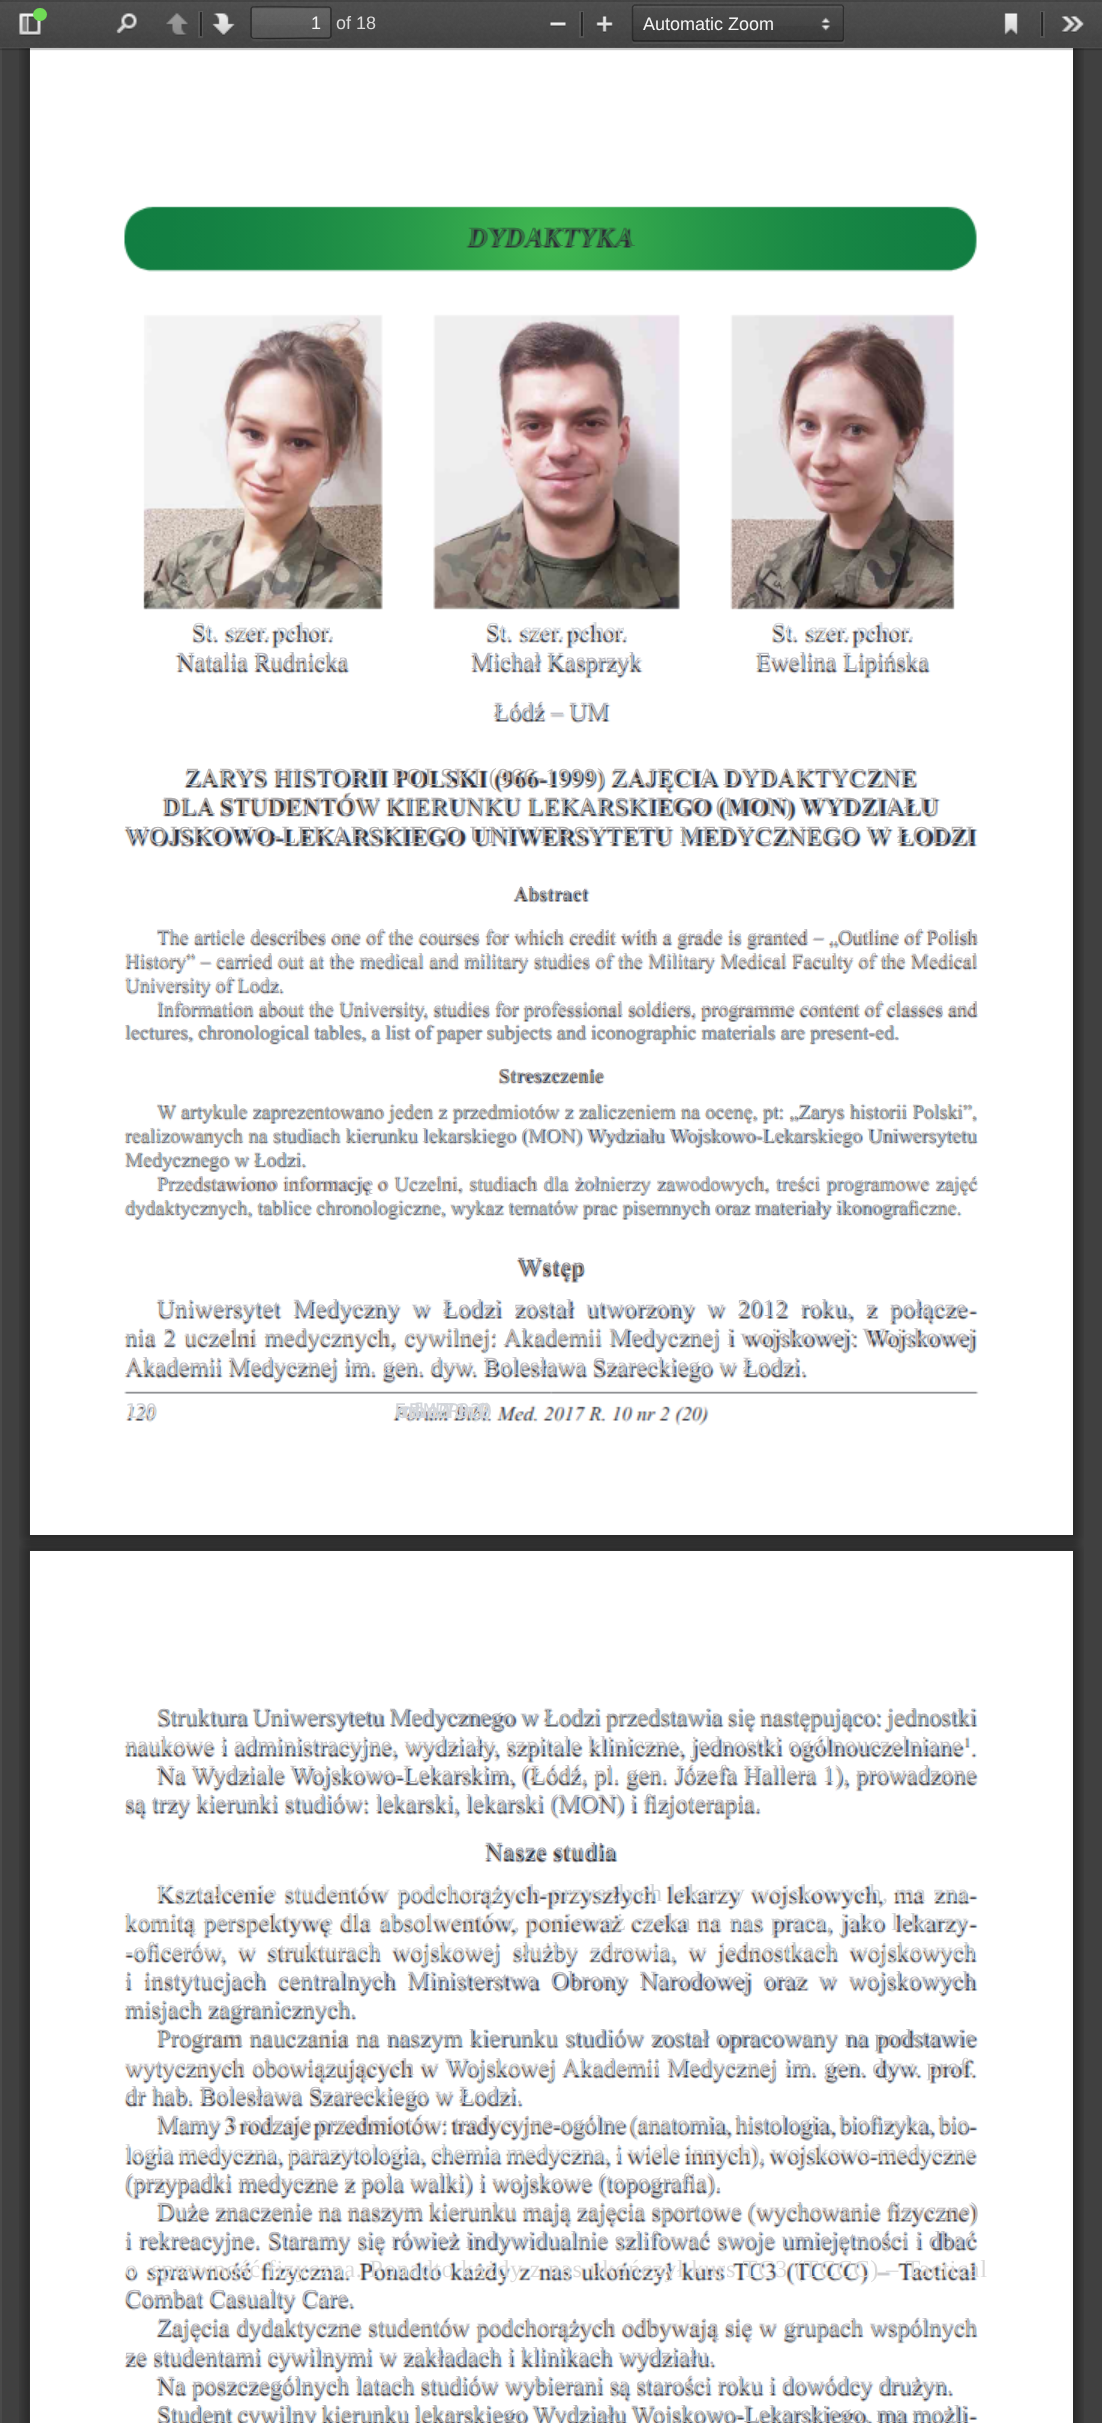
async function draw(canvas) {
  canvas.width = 1102;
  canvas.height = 2423;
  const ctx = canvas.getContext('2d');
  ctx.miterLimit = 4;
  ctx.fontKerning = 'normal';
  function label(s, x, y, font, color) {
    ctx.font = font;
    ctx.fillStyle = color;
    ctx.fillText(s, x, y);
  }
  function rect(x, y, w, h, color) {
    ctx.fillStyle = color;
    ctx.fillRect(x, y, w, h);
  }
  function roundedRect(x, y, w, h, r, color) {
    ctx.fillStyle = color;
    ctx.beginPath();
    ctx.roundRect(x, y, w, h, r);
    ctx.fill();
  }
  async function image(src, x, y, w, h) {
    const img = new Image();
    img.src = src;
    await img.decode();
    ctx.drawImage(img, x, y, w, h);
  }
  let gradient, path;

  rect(0, 0, 1102, 2423, '#404040');
  rect(0, 48, 2, 2375, '#4a4a4a');
  await image('assets/img11.png', 19, 48, 1065, 1498);
  await image('assets/img12.png', 30, 48, 1043, 1487);
  ctx.save();
  ctx.beginPath();
  ctx.rect(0, 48, 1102, 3);
  ctx.clip();
  ctx.fillStyle = '#0000001a';
  ctx.filter = 'blur(1px)';
  ctx.beginPath();
  ctx.rect(0, 2, 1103, 48);
  ctx.fill();
  ctx.filter = 'none';
  ctx.restore();
  ctx.fillStyle = '#00000026';
  path = new Path2D('M0 48V50H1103V2H1102V48Z');
  ctx.fill(path);
  await image('assets/img1.png', 0, 0, 1102, 48);
  rect(0, 47, 1102, 2, '#ffffff0d');
  rect(0, 0, 1102, 2, '#00000026');
  await image('assets/img2.png', 19, 13, 22, 23);
  roundedRect(33, 8, 14, 13, 6.5, '#70db55');
  await image('assets/img3.png', 116, 13, 21, 22);
  await image('assets/img4.png', 166, 13, 22, 23);
  ctx.strokeStyle = '#ffffff14';
  ctx.lineWidth = 2;
  ctx.strokeRect(199, 12, 3, 25);
  rect(200, 12, 2, 24, '#00000080');
  await image('assets/img5.png', 212, 13, 23, 23);
  ctx.fillStyle = '#ffffff0d';
  path = new Path2D('M251 38C251 44 266 41 266 41H316C333 41 332 44 332 29C332 26 333 11 332 9V36C332 38 330 39 328 39H254C252 39 252 38 251 38Z');
  ctx.fill(path);
  rect(252, 8, 78, 30, '#ffffff17');
  gradient = ctx.createLinearGradient(291, 7.5, 291, 38);
  gradient.addColorStop(0, '#ffffff0d');
  gradient.addColorStop(1, '#ffffff00');
  ctx.fillStyle = gradient;
  ctx.fillRect(252, 8, 78, 17);
  ctx.fillStyle = '#0000000d';
  path = new Path2D('M254 9H328L330 10C330 9 330 8 328 8H253C252 8 252 9 252 10Z');
  ctx.fill(path);
  path = new Path2D('M252 7.5L252.5 7C254 6 309.5 7 316 7H328.5L330 7.5');
  ctx.strokeStyle = '#00000052';
  ctx.lineWidth = 1.5;
  ctx.stroke(path);
  path = new Path2D('M330 7.5C330.5 8 331 8.5 331 9V36C331 36.5 330.5 37 330 37.5');
  ctx.strokeStyle = '#00000061';
  ctx.stroke(path);
  path = new Path2D('M330 37.5L328.5 38H316C309.5 38 254 39 252.5 38L252 37.5');
  ctx.strokeStyle = '#0000006b';
  ctx.stroke(path);
  path = new Path2D('M252 37.5C251.5 37 251 36.5 251 36V9C251 8.5 251.5 8 252 7.5');
  ctx.strokeStyle = '#00000061';
  ctx.stroke(path);
  label('1', 311, 29, '18px Liberation Sans', '#f2f2f2');
  label('of 18', 336, 29, '18px Liberation Sans', '#dad9d9');
  await image('assets/img6.png', 550, 22, 16, 5);
  ctx.strokeStyle = '#ffffff14';
  ctx.lineWidth = 2;
  ctx.strokeRect(580, 12, 3, 25);
  rect(581, 12, 2, 24, '#00000080');
  await image('assets/img7.png', 596, 16, 17, 17);
  ctx.fillStyle = '#ffffff0d';
  path = new Path2D('M632 41C632 43 633 44 635 44H842C844 44 845 43 845 41V9L844 7V39C844 41 843 42 842 42H634C633 42 633 41 632 41Z');
  ctx.fill(path);
  rect(633, 6, 210, 35, '#0000001f');
  gradient = ctx.createLinearGradient(738, 6, 738, 41);
  gradient.addColorStop(0, '#ffffff0d');
  gradient.addColorStop(1, '#ffffff00');
  ctx.fillStyle = gradient;
  ctx.fillRect(633, 6, 210, 20);
  ctx.fillStyle = '#ffffff0d';
  path = new Path2D('M634 8H842L843 9C843 8 843 6 842 6H634C633 6 633 8 633 9Z');
  ctx.fill(path);
  path = new Path2D('M633 6L634.5 5H841.5L843 6');
  ctx.strokeStyle = '#00000052';
  ctx.lineWidth = 1.5;
  ctx.stroke(path);
  path = new Path2D('M843 6L843.5 7.5V39L843 40.5');
  ctx.strokeStyle = '#00000061';
  ctx.stroke(path);
  path = new Path2D('M843 40.5L841.5 41H634.5L633 40.5');
  ctx.strokeStyle = '#0000006b';
  ctx.stroke(path);
  path = new Path2D('M633 40.5L632.5 39V7.5L633 6');
  ctx.strokeStyle = '#00000061';
  ctx.stroke(path);
  label('Automatic Zoom', 643, 30, '18px Liberation Sans', '#f2f2f2');
  await image('assets/img8.png', 821, 17, 9, 14);
  await image('assets/img9.png', 1004, 13, 14, 23);
  ctx.strokeStyle = '#ffffff14';
  ctx.lineWidth = 2;
  ctx.strokeRect(1041, 12, 3, 25);
  rect(1041, 12, 2, 24, '#00000080');
  await image('assets/img10.png', 1061, 16, 24, 17);
  ctx.letterSpacing = '-1.25px';
  label('DYDAKTYKA', 468, 246, '27.75px Liberation Serif', '#347543');
  ctx.letterSpacing = '-0.5px';
  label('St.  szer. pchor.', 192, 639, '24.65px Liberation Serif', '#cfd2d5');
  label('St.  szer. pchor.', 486, 639, '24.65px Liberation Serif', '#d3d6db');
  label('St.  szer. pchor.', 772, 639, '24.65px Liberation Serif', '#d3d6db');
  ctx.letterSpacing = '0px';
  label('Natalia Rudnicka', 177, 669, '24.65px Liberation Serif', '#b9b9c1');
  label('Michał Kasprzyk', 471, 669, '24.65px Liberation Serif', '#b9b9c1');
  label('Ewelina Lipińska', 756, 669, '24.65px Liberation Serif', '#b9b9c1');
  label('Łódź – UM', 494, 719, '24.65px Liberation Serif', '#b9b9c1');
  ctx.letterSpacing = '0.65px';
  label('ZARYS HISTORII POLSKI (966-1999) ZAJĘCIA DYDAKTYCZNE', 185, 785, '24.65px Liberation Serif', '#b7b4b3');
  ctx.letterSpacing = '0.7px';
  label('DLA STUDENTÓW KIERUNKU LEKARSKIEGO (MON) WYDZIAŁU', 163, 814, '24.65px Liberation Serif', '#afadae');
  ctx.letterSpacing = '0.8px';
  label('WOJSKOWO-LEKARSKIEGO UNIWERSYTETU MEDYCZNEGO W ŁODZI', 125, 843, '24.65px Liberation Serif', '#afadae');
  ctx.letterSpacing = '0.5px';
  label('Ab', 514, 900, '20.2px Liberation Serif', '#9a989f');
  ctx.letterSpacing = '1px';
  label('stract', 539, 900, '20.2px Liberation Serif', '#9a989f');
  ctx.letterSpacing = '0.13px';
  label('The article describes one of the courses for which credit with a grade is granted – „Outline of Polish', 157, 943, '20.2px Liberation Serif', '#b9b9c1');
  ctx.letterSpacing = '0.11px';
  label('History” – carried out at the medical and military studies of the Military Medical Faculty of the Medical', 125, 967, '20.2px Liberation Serif', '#bfbbbd');
  ctx.letterSpacing = '0px';
  label('University of Lodz.', 125, 991, '20.2px Liberation Serif', '#c0bec3');
  ctx.letterSpacing = '0.05px';
  label('Information about the University, studies for professional soldiers, programme content of classes and', 157, 1015, '20.2px Liberation Serif', '#b9b9c1');
  ctx.letterSpacing = '0px';
  label('lectures, chronological tables, a list of paper subjects and iconographic materials are present-ed.', 125, 1039, '20.2px Liberation Serif', '#a6a3a9');
  ctx.letterSpacing = '0.4px';
  label('Streszczenie', 499, 1082, '20.2px Liberation Serif', '#a29c9b');
  ctx.letterSpacing = '0.05px';
  label('W artykule zaprezentowano jeden z przedmiotów z zaliczeniem na ocenę, pt: „Zarys historii Polski”,', 157, 1118, '20.2px Liberation Serif', '#afadae');
  ctx.wordSpacing = '-0.1px';
  label('realizowanych na studiach kierunku lekarskiego (MON) Wydziału Wojskowo-Lekarskiego Uniwersytetu', 125, 1142, '20.2px Liberation Serif', '#b7b4b3');
  ctx.letterSpacing = '0px';
  ctx.wordSpacing = '0px';
  label('Medycznego w Łodzi.', 125, 1166, '20.2px Liberation Serif', '#afadae');
  ctx.letterSpacing = '0.22px';
  label('Przedstawiono informację o Uczelni, studiach dla żołnierzy zawodowych, treści programowe zajęć', 157, 1190, '20.2px Liberation Serif', '#b9b9c1');
  ctx.letterSpacing = '0px';
  ctx.wordSpacing = '-0.1px';
  label('dydaktycznych, tablice chronologiczne, wykaz tematów prac pisemnych oraz materiały ikonograficzne.', 125, 1214, '20.2px Liberation Serif', '#b7b4b3');
  ctx.letterSpacing = '1px';
  ctx.wordSpacing = '0px';
  label('Wstęp', 518, 1274, '24.65px Liberation Serif', '#989498');
  ctx.letterSpacing = '0.25px';
  label('Uniwersytet  Medyczny  w  Łodzi  został  utworzony  w  2012  roku,  z  połącze', 157, 1316, '24.65px Liberation Serif', '#b9b9c1');
  ctx.letterSpacing = '0.5px';
  label('nia 2', 125, 1345, '24.65px Liberation Serif', '#b9b9c1');
  ctx.letterSpacing = '0.25px';
  label('uczelni medycznych, cywilnej: Akademii Medycznej i wojskowej: Wojskowej', 185, 1345, '24.65px Liberation Serif', '#bfbbbd');
  ctx.letterSpacing = '0px';
  label('Akademii Medycznej im. gen. dyw. Bolesława Szareckiego w Łodzi.', 125, 1374, '24.65px Liberation Serif', '#c0bec3');
  ctx.letterSpacing = '-2px';
  label('120', 125, 1418, '20.2px DejaVu Sans Mono', '#d3d6db');
  ctx.letterSpacing = '-9.7px';
  label('Forum Bibl. Med. 2017 R. 10 nr 2 (20)', 394, 1418, '20.2px DejaVu Sans Mono', '#d3d6db');
  await image('assets/img13.png', 19, 1540, 1065, 883);
  await image('assets/img14.png', 30, 1551, 1043, 872);
  ctx.letterSpacing = '-0.2px';
  label('Struktura Uniwersytetu Medycznego w Łodzi przedstawia się następująco: jednostki', 157, 1725, '24.65px Liberation Serif', '#b0b1b6');
  ctx.letterSpacing = '0.05px';
  label('naukowe i administracyjne, wydziały, szpitale kliniczne, jednostki ogólnouczelniane', 125, 1753, '24.65px Liberation Serif', '#c6c4c7');
  ctx.letterSpacing = '0px';
  label('Na Wydziale Wojskowo-Lekarskim, (', 157, 1782, '24.65px Liberation Serif', '#bfbbbd');
  ctx.letterSpacing = '0.05px';
  label('Łódź, pl. gen. Józefa Hallera 1), prowadzone', 531, 1782, '24.65px Liberation Serif', '#bfbbbd');
  ctx.letterSpacing = '0px';
  label('są trzy kierunki studiów: lekarski, lekarski (MON) i fizjoterapia.', 125, 1811, '24.65px Liberation Serif', '#b9b9c1');
  ctx.letterSpacing = '0.5px';
  label('Nasze studia', 485, 1859, '24.65px Liberation Serif', '#a3a8b2');
  ctx.letterSpacing = '0.53px';
  label('Kształcenie studentów podchorążych-przyszłych lekarzy wojskowych, ma zna', 157, 1901, '24.65px Liberation Serif', '#cfd2d5');
  ctx.letterSpacing = '0.55px';
  label('komitą perspektywę dla absolwentów, ponieważ czeka na nas praca, jako lekarzy', 125, 1930, '24.65px Liberation Serif', '#c8cbce');
  ctx.letterSpacing = '0.08px';
  label('-oficerów,  w  strukturach  wojskowej  służby  zdrowia,  w  jednostkach  wojskowych', 125, 1959, '24.65px Liberation Serif', '#c8cbce');
  ctx.letterSpacing = '0.15px';
  label('i  instytucjach  centralnych  Ministerstwa  Obrony  Narodowej  oraz  w  wojskowych', 125, 1988, '24.65px Liberation Serif', '#b9b9c1');
  ctx.letterSpacing = '0px';
  label('misjach zagranicznych.', 125, 2017, '24.65px Liberation Serif', '#b6b6bb');
  ctx.letterSpacing = '0.2px';
  label('Program nauczania na naszym kierunku studiów został opracowany na podstawie', 157, 2046, '24.65px Liberation Serif', '#b0b1b6');
  ctx.letterSpacing = '0.18px';
  label('wytycznych obowiązujących w Wojskowej Akademii Medycznej im. gen. dyw. prof.', 125, 2075, '24.65px Liberation Serif', '#c6c4c7');
  ctx.letterSpacing = '0px';
  label('dr hab. Bolesława Szareckiego w Łodzi.', 125, 2103, '24.65px Liberation Serif', '#c0bec3');
  ctx.letterSpacing = '-0.5px';
  label('Mamy 3 rodzaje przedmiotów: tradycyjne-ogólne (anatomia, histologia, biofizyka, bio', 157, 2132, '24.65px Liberation Serif', '#c0bec3');
  ctx.letterSpacing = '-0.27px';
  label('logia medyczna, parazytologia, chemia medyczna, i wiele innych), wojskowo-medyczne', 125, 2161, '24.65px Liberation Serif', '#cfd2d5');
  ctx.letterSpacing = '0px';
  label('(przypadki medyczne z pola walki) i wojskowe (topografia).', 125, 2190, '24.65px Liberation Serif', '#bfbbbd');
  label('Duże znaczenie na naszym kierunku mają zajęcia sportowe (wychowanie fizyczne)', 157, 2219, '24.65px Liberation Serif', '#bfbbbd');
  ctx.letterSpacing = '0.15px';
  label('i rekreacyjne. Staramy się rówież indywidualnie szlifować swoje umiejętności i dbać', 125, 2248, '24.65px Liberation Serif', '#b9b9c1');
  ctx.letterSpacing = '0.6px';
  label('o  sprawność fizyczna. Ponadto każdy z nas ukończył kurs TC3 (TCCC) – Tactical', 125, 2277, '24.65px Liberation Serif', '#dad9d9');
  ctx.letterSpacing = '0px';
  label('Combat Casualty Care.', 125, 2306, '24.65px Liberation Serif', '#b9b9c1');
  ctx.letterSpacing = '0.1px';
  label('Zajęcia dydaktyczne studentów podchorążych odbywają się w grupach wspólnych', 157, 2335, '24.65px Liberation Serif', '#b9b9c1');
  ctx.letterSpacing = '0px';
  label('ze studentami cywilnymi w zakładach i klinikach wydziału.', 125, 2364, '24.65px Liberation Serif', '#b9b9c1');
  label('Na poszczególnych latach studiów wybierani są starości roku i dowódcy drużyn.', 157, 2393, '24.65px Liberation Serif', '#b9b9c1');
  ctx.letterSpacing = '-0.12px';
  label('Student cywilny kierunku lekarskiego Wydziału Wojskowo-Lekarskiego, ma możli', 157, 2422, '24.65px Liberation Serif', '#b0b1b6');
}

draw(document.querySelector('canvas'));
